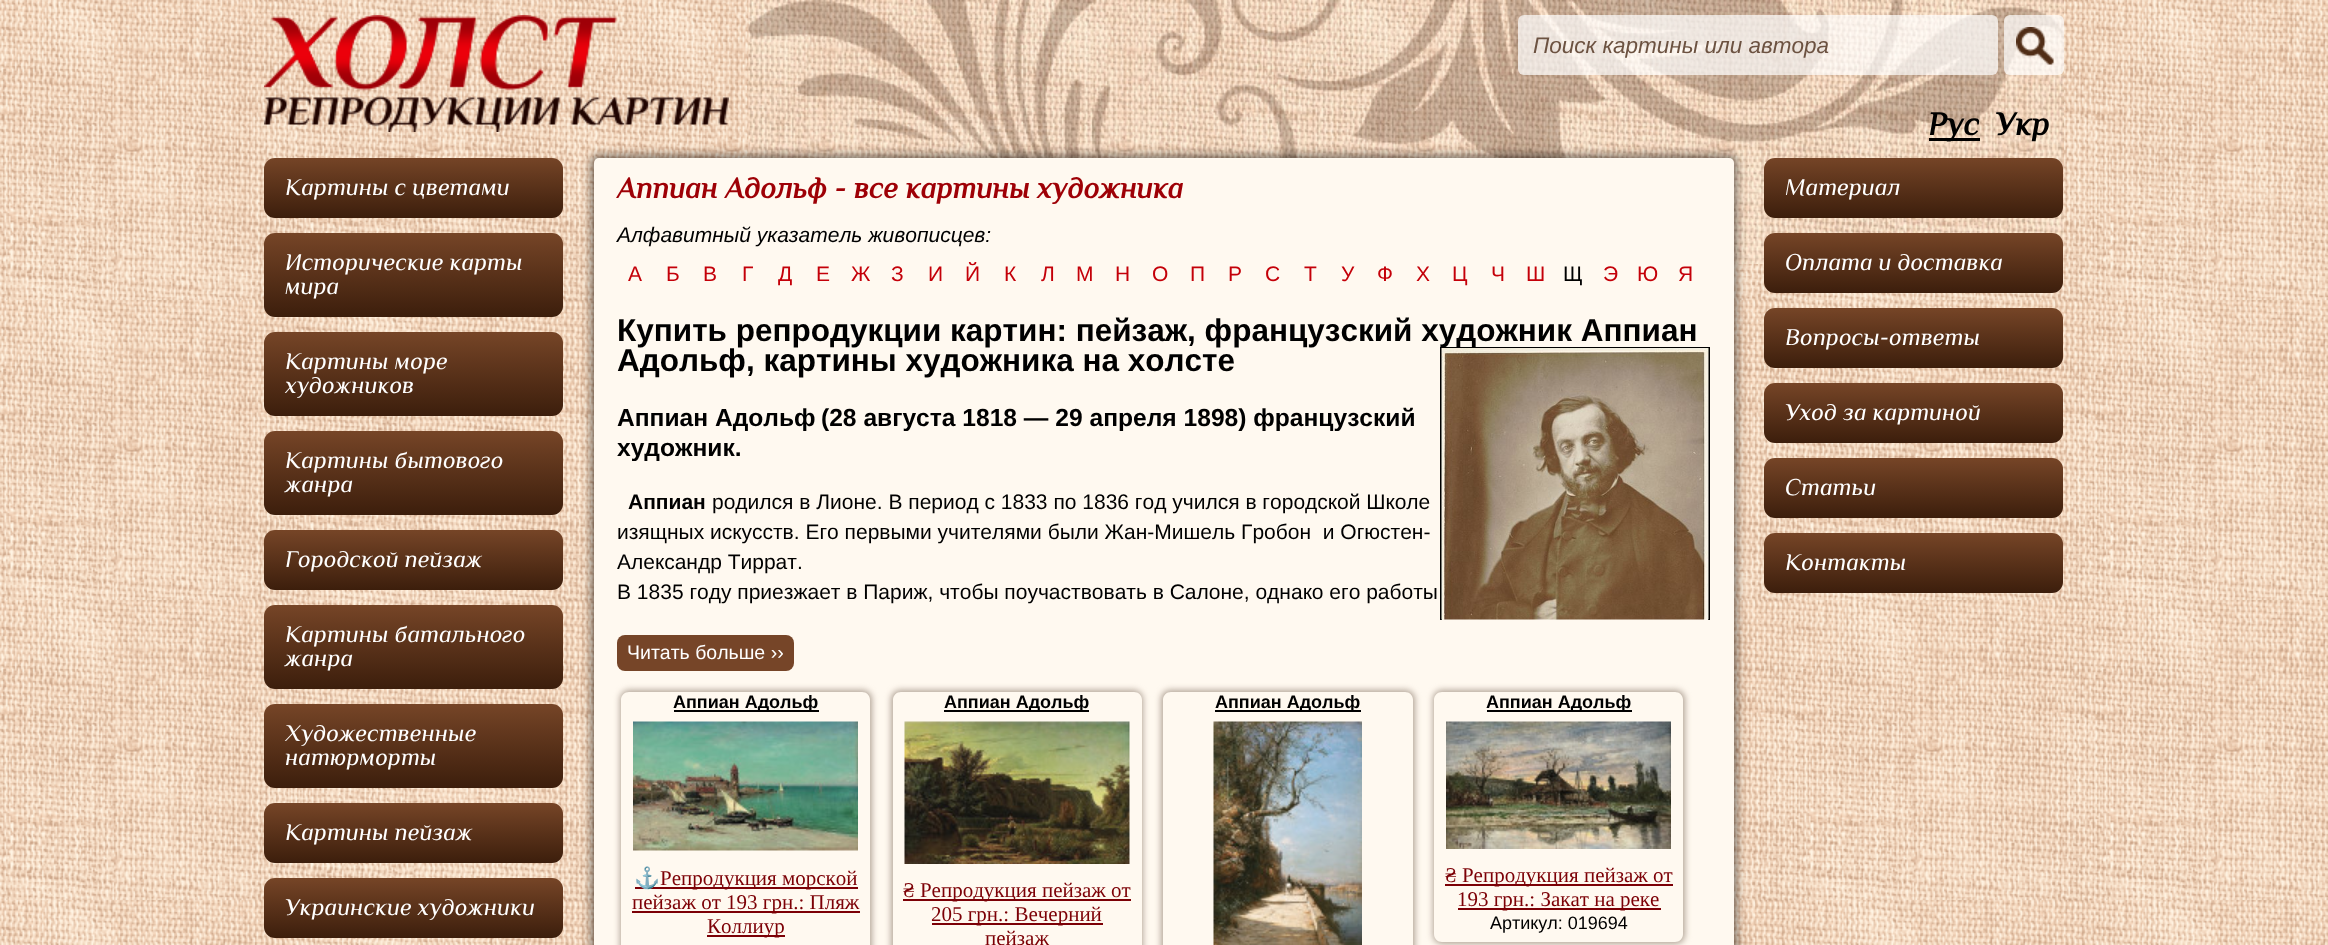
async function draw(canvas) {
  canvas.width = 2328;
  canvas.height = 945;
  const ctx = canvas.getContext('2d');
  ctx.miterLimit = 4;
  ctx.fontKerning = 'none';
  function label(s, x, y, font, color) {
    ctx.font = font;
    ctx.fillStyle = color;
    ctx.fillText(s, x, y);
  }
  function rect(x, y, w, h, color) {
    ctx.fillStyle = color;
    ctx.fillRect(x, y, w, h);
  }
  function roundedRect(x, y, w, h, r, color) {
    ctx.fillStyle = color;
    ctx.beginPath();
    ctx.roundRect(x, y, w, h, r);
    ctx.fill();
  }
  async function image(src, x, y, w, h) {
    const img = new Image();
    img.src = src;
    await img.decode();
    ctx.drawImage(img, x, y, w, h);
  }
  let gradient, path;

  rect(0, 0, 2328, 945, '#fff');
  await image('assets/img1.png', 0, 0, 2328, 945);
  await image('assets/img2.png', 748, 0, 1316, 264);
  await image('assets/img3.png', 264, 15, 465, 117);
  roundedRect(1518, 15, 480, 60, 6, '#ffffffb3');
  label('Поиск картины или автора', 1533, 53, 'italic 22.5px Liberation Sans', '#6c5241');
  roundedRect(2004, 15, 60, 60, 6, '#ffffffb3');
  await image('assets/img4.png', 2016, 27, 38, 38);
  rect(1929, 138, 51, 3, '#000');
  label('Рус', 1928, 135, 'italic bold 33px Philosopher', '#000');
  label('Укр', 1995, 135, 'italic bold 33px Philosopher', '#000');
  gradient = ctx.createLinearGradient(413, 157, 413, 218);
  gradient.addColorStop(0, '#764527');
  gradient.addColorStop(1, '#3c1e0c');
  ctx.fillStyle = gradient;
  ctx.beginPath();
  ctx.roundRect(264, 158, 299, 60, 11);
  ctx.fill();
  label('Картины с цветами', 285, 195, 'italic 24px Philosopher', '#fff');
  gradient = ctx.createLinearGradient(413, 233, 413, 317);
  gradient.addColorStop(0, '#764527');
  gradient.addColorStop(1, '#3c1e0c');
  ctx.fillStyle = gradient;
  ctx.beginPath();
  ctx.roundRect(264, 233, 299, 84, 11);
  ctx.fill();
  label('Исторические карты', 285, 270, 'italic 24px Philosopher', '#fff');
  label('мира', 285, 294, 'italic 24px Philosopher', '#fff');
  gradient = ctx.createLinearGradient(413, 332, 413, 416);
  gradient.addColorStop(0, '#764527');
  gradient.addColorStop(1, '#3c1e0c');
  ctx.fillStyle = gradient;
  ctx.beginPath();
  ctx.roundRect(264, 332, 299, 84, 11);
  ctx.fill();
  label('Картины море', 285, 369, 'italic 24px Philosopher', '#fff');
  label('художников', 285, 393, 'italic 24px Philosopher', '#fff');
  gradient = ctx.createLinearGradient(413, 431, 413, 515);
  gradient.addColorStop(0, '#764527');
  gradient.addColorStop(1, '#3c1e0c');
  ctx.fillStyle = gradient;
  ctx.beginPath();
  ctx.roundRect(264, 431, 299, 84, 11);
  ctx.fill();
  label('Картины бытового', 285, 468, 'italic 24px Philosopher', '#fff');
  label('жанра', 285, 492, 'italic 24px Philosopher', '#fff');
  gradient = ctx.createLinearGradient(413, 530, 413, 590);
  gradient.addColorStop(0, '#764527');
  gradient.addColorStop(1, '#3c1e0c');
  ctx.fillStyle = gradient;
  ctx.beginPath();
  ctx.roundRect(264, 530, 299, 60, 11);
  ctx.fill();
  label('Городской пейзаж', 285, 567, 'italic 24px Philosopher', '#fff');
  gradient = ctx.createLinearGradient(413, 605, 413, 689);
  gradient.addColorStop(0, '#764527');
  gradient.addColorStop(1, '#3c1e0c');
  ctx.fillStyle = gradient;
  ctx.beginPath();
  ctx.roundRect(264, 605, 299, 84, 11);
  ctx.fill();
  label('Картины батального', 285, 642, 'italic 24px Philosopher', '#fff');
  label('жанра', 285, 666, 'italic 24px Philosopher', '#fff');
  gradient = ctx.createLinearGradient(413, 704, 413, 788);
  gradient.addColorStop(0, '#764527');
  gradient.addColorStop(1, '#3c1e0c');
  ctx.fillStyle = gradient;
  ctx.beginPath();
  ctx.roundRect(264, 704, 299, 84, 11);
  ctx.fill();
  label('Художественные', 285, 741, 'italic 24px Philosopher', '#fff');
  label('натюрморты', 285, 765, 'italic 24px Philosopher', '#fff');
  gradient = ctx.createLinearGradient(413, 803, 413, 863);
  gradient.addColorStop(0, '#764527');
  gradient.addColorStop(1, '#3c1e0c');
  ctx.fillStyle = gradient;
  ctx.beginPath();
  ctx.roundRect(264, 803, 299, 60, 11);
  ctx.fill();
  label('Картины пейзаж', 285, 840, 'italic 24px Philosopher', '#fff');
  gradient = ctx.createLinearGradient(413, 878, 413, 938);
  gradient.addColorStop(0, '#764527');
  gradient.addColorStop(1, '#3c1e0c');
  ctx.fillStyle = gradient;
  ctx.beginPath();
  ctx.roundRect(264, 878, 299, 60, 11);
  ctx.fill();
  label('Украинские художники', 285, 915, 'italic 24px Philosopher', '#fff');
  ctx.fillStyle = '#00000080';
  ctx.filter = 'blur(5px)';
  ctx.beginPath();
  ctx.roundRect(591, 155, 1146, 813, 8);
  ctx.fill();
  ctx.filter = 'none';
  roundedRect(594, 158, 1140, 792, 5, '#fff9f0');
  label('Аппиан Адольф - все картины художника', 617, 198, 'italic bold 30px Philosopher', '#9e0006');
  label('Алфавитный указатель живописцев:', 617, 242, 'italic 21px Liberation Sans', '#000');
  label('А', 628, 281, '21px Liberation Sans', '#c40009');
  label('Б', 666, 281, '21px Liberation Sans', '#c40009');
  label('В', 703, 281, '21px Liberation Sans', '#c40009');
  label('Г', 742, 281, '21px Liberation Sans', '#c40009');
  label('Д', 778, 281, '21px Liberation Sans', '#c40009');
  label('Е', 816, 281, '21px Liberation Sans', '#c40009');
  label('Ж', 851, 281, '21px Liberation Sans', '#c40009');
  label('З', 891, 281, '21px Liberation Sans', '#c40009');
  label('И', 928, 281, '21px Liberation Sans', '#c40009');
  label('Й', 965, 281, '21px Liberation Sans', '#c40009');
  label('К', 1004, 281, '21px Liberation Sans', '#c40009');
  label('Л', 1041, 281, '21px Liberation Sans', '#c40009');
  label('М', 1076, 281, '21px Liberation Sans', '#c40009');
  label('Н', 1115, 281, '21px Liberation Sans', '#c40009');
  label('О', 1152, 281, '21px Liberation Sans', '#c40009');
  label('П', 1190, 281, '21px Liberation Sans', '#c40009');
  label('Р', 1228, 281, '21px Liberation Sans', '#c40009');
  label('С', 1265, 281, '21px Liberation Sans', '#c40009');
  label('Т', 1304, 281, '21px Liberation Sans', '#c40009');
  label('У', 1341, 281, '21px Liberation Sans', '#c40009');
  label('Ф', 1377, 281, '21px Liberation Sans', '#c40009');
  label('Х', 1416, 281, '21px Liberation Sans', '#c40009');
  label('Ц', 1452, 281, '21px Liberation Sans', '#c40009');
  label('Ч', 1491, 281, '21px Liberation Sans', '#c40009');
  label('Ш', 1526, 281, '21px Liberation Sans', '#c40009');
  label('Щ', 1563, 281, '21px Liberation Sans', '#000');
  label('Э', 1603, 281, '21px Liberation Sans', '#c40009');
  label('Ю', 1637, 281, '21px Liberation Sans', '#c40009');
  label('Я', 1678, 281, '21px Liberation Sans', '#c40009');
  ctx.save();
  path = new Path2D('M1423 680H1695V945H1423ZM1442 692H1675C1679.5 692 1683 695.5 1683 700V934C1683 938.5 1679.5 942 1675 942H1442C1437.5 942 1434 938.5 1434 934V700C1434 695.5 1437.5 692 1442 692Z');
  ctx.clip(path, 'evenodd');
  ctx.fillStyle = '#b2a497';
  ctx.filter = 'blur(3px)';
  ctx.beginPath();
  ctx.roundRect(1433, 690, 252, 254, 9);
  ctx.fill();
  ctx.filter = 'none';
  ctx.restore();
  rect(1487, 710, 145, 2, '#000');
  await image('assets/img9.png', 1446, 721, 225, 128);
  ctx.save();
  ctx.beginPath();
  ctx.rect(617, 290, 1095, 330);
  ctx.clip();
  ctx.strokeStyle = '#000';
  ctx.lineWidth = 2;
  ctx.strokeRect(1441, 348, 268, 376);
  ctx.restore();
  label('Купить репродукции картин: пейзаж, французский художник Аппиан', 617, 341, 'bold 31.5px Liberation Sans', '#000');
  label('Адольф, картины художника на холсте', 617, 371, 'bold 31.5px Liberation Sans', '#000');
  await image('assets/img5.png', 1441, 348, 268, 272);
  label('Аппиан Адольф', 617, 426, 'bold 24.6px Liberation Sans', '#000');
  label('(28 августа 1818 — 29 апреля 1898) французский', 821, 426, 'bold 24.6px Liberation Sans', '#000');
  label('художник.', 617, 456, 'bold 24.6px Liberation Sans', '#000');
  label('Аппиан', 628, 509, 'bold 21px Liberation Sans', '#000');
  label('родился в Лионе. В период с 1833 по 1836 год учился в городской Школе', 712, 509, '21px Liberation Sans', '#000');
  label('изящных искусств. Его первыми учителями были Жан-Мишель Гробон  и Огюстен-', 617, 539, '21px Liberation Sans', '#000');
  label('Александр Тиррат.', 617, 569, '21px Liberation Sans', '#000');
  label('В 1835 году приезжает в Париж, чтобы поучаствовать в Салоне, однако его работы', 617, 599, '21px Liberation Sans', '#000');
  roundedRect(617, 635, 177, 36, 8, '#764528');
  label('Читать больше ››', 627, 659, '19.5px Liberation Sans', '#fff');
  ctx.save();
  path = new Path2D('M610 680H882V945H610ZM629 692H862C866.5 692 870 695.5 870 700V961C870 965.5 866.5 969 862 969H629C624.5 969 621 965.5 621 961V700C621 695.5 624.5 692 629 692Z');
  ctx.clip(path, 'evenodd');
  ctx.fillStyle = '#b2a497';
  ctx.filter = 'blur(3px)';
  ctx.beginPath();
  ctx.roundRect(620, 690, 252, 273, 9);
  ctx.fill();
  ctx.filter = 'none';
  ctx.restore();
  rect(674, 710, 145, 2, '#000');
  label('Аппиан Адольф', 673, 708, 'bold 18px Liberation Sans', '#000');
  await image('assets/img6.png', 633, 721, 225, 130);
  rect(635, 887, 223, 2, '#7c0006');
  label('⚓', 634, 885, '21px Noto Color Emoji', '#7c0006');
  label('Репродукция морской', 660, 885, '21px Liberation Serif', '#7c0006');
  rect(632, 911, 228, 2, '#7c0006');
  label('пейзаж от 193 грн.: Пляж', 632, 909, '21px Liberation Serif', '#7c0006');
  rect(707, 935, 78, 2, '#7c0006');
  label('Коллиур', 707, 933, '21px Liberation Serif', '#7c0006');
  ctx.save();
  path = new Path2D('M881 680H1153V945H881ZM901 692H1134C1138.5 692 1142 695.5 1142 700V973C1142 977.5 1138.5 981 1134 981H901C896.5 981 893 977.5 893 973V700C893 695.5 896.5 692 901 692Z');
  ctx.clip(path, 'evenodd');
  ctx.fillStyle = '#b2a497';
  ctx.filter = 'blur(3px)';
  ctx.beginPath();
  ctx.roundRect(891, 690, 252, 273, 9);
  ctx.fill();
  ctx.filter = 'none';
  ctx.restore();
  rect(944, 710, 145, 2, '#000');
  label('Аппиан Адольф', 944, 708, 'bold 18px Liberation Sans', '#000');
  await image('assets/img7.png', 904, 721, 226, 143);
  rect(903, 899, 228, 2, '#7c0006');
  label('₴ Репродукция пейзаж от', 903, 897, '21px Liberation Serif', '#7c0006');
  rect(932, 923, 171, 2, '#7c0006');
  label('205 грн.: Вечерний', 931, 921, '21px Liberation Serif', '#7c0006');
  label('пейзаж', 985, 945, '21px Liberation Serif', '#7c0006');
  ctx.save();
  path = new Path2D('M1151 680H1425V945H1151ZM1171 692H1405C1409.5 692 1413 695.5 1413 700V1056C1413 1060.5 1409.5 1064 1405 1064H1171C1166.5 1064 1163 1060.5 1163 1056V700C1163 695.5 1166.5 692 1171 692Z');
  ctx.clip(path, 'evenodd');
  ctx.fillStyle = '#b2a497';
  ctx.filter = 'blur(3px)';
  ctx.beginPath();
  ctx.roundRect(1161, 690, 254, 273, 9);
  ctx.fill();
  ctx.filter = 'none';
  ctx.restore();
  rect(1215, 710, 146, 2, '#000');
  label('Аппиан Адольф', 1215, 708, 'bold 18px Liberation Sans', '#000');
  await image('assets/img8.png', 1213, 721, 149, 224);
  label('Аппиан Адольф', 1486, 708, 'bold 18px Liberation Sans', '#000');
  rect(1445, 884, 228, 2, '#7c0006');
  label('₴ Репродукция пейзаж от', 1445, 882, '21px Liberation Serif', '#7c0006');
  rect(1458, 908, 203, 2, '#7c0006');
  label('193 грн.: Закат на реке', 1457, 906, '21px Liberation Serif', '#7c0006');
  label('Артикул: 019694', 1490, 929, '18px Liberation Sans', '#000');
  gradient = ctx.createLinearGradient(1913, 157, 1913, 218);
  gradient.addColorStop(0, '#764527');
  gradient.addColorStop(1, '#3c1e0c');
  ctx.fillStyle = gradient;
  ctx.beginPath();
  ctx.roundRect(1764, 158, 299, 60, 11);
  ctx.fill();
  label('Материал', 1785, 195, 'italic 24px Philosopher', '#fff');
  gradient = ctx.createLinearGradient(1913, 233, 1913, 293);
  gradient.addColorStop(0, '#764527');
  gradient.addColorStop(1, '#3c1e0c');
  ctx.fillStyle = gradient;
  ctx.beginPath();
  ctx.roundRect(1764, 233, 299, 60, 11);
  ctx.fill();
  label('Оплата и доставка', 1785, 270, 'italic 24px Philosopher', '#fff');
  gradient = ctx.createLinearGradient(1913, 308, 1913, 368);
  gradient.addColorStop(0, '#764527');
  gradient.addColorStop(1, '#3c1e0c');
  ctx.fillStyle = gradient;
  ctx.beginPath();
  ctx.roundRect(1764, 308, 299, 60, 11);
  ctx.fill();
  label('Вопросы-ответы', 1785, 345, 'italic 24px Philosopher', '#fff');
  gradient = ctx.createLinearGradient(1913, 383, 1913, 443);
  gradient.addColorStop(0, '#764527');
  gradient.addColorStop(1, '#3c1e0c');
  ctx.fillStyle = gradient;
  ctx.beginPath();
  ctx.roundRect(1764, 383, 299, 60, 11);
  ctx.fill();
  label('Уход за картиной', 1785, 420, 'italic 24px Philosopher', '#fff');
  gradient = ctx.createLinearGradient(1913, 458, 1913, 518);
  gradient.addColorStop(0, '#764527');
  gradient.addColorStop(1, '#3c1e0c');
  ctx.fillStyle = gradient;
  ctx.beginPath();
  ctx.roundRect(1764, 458, 299, 60, 11);
  ctx.fill();
  label('Статьи', 1785, 495, 'italic 24px Philosopher', '#fff');
  gradient = ctx.createLinearGradient(1913, 533, 1913, 593);
  gradient.addColorStop(0, '#764527');
  gradient.addColorStop(1, '#3c1e0c');
  ctx.fillStyle = gradient;
  ctx.beginPath();
  ctx.roundRect(1764, 533, 299, 60, 11);
  ctx.fill();
  label('Контакты', 1785, 570, 'italic 24px Philosopher', '#fff');
}

draw(document.querySelector('canvas'));
